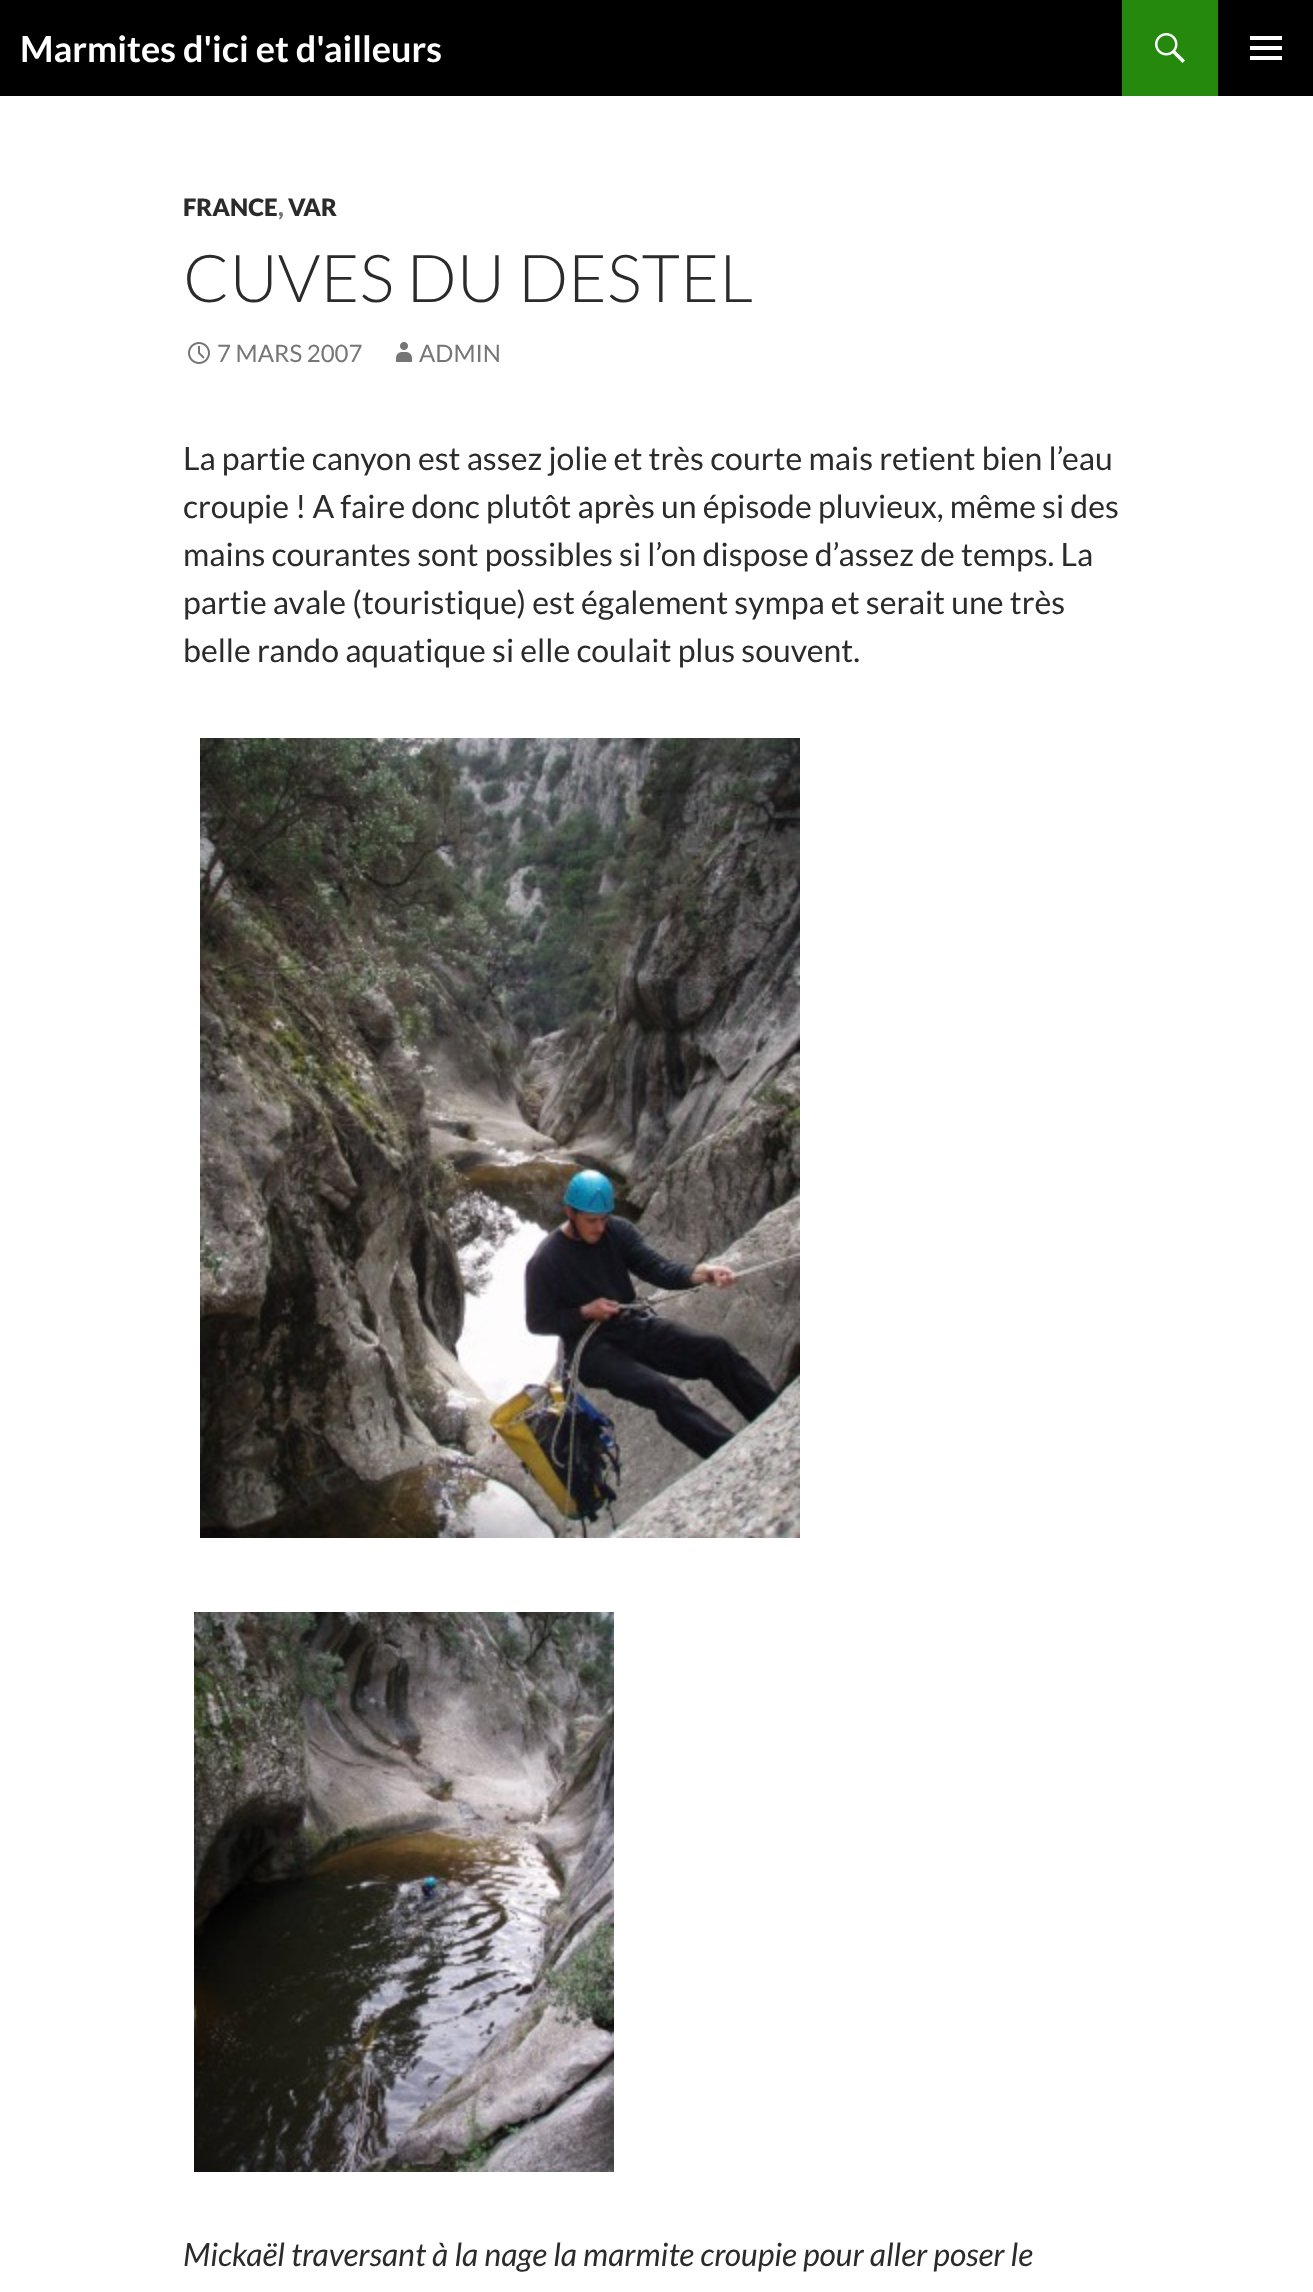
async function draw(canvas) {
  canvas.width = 1313;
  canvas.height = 2292;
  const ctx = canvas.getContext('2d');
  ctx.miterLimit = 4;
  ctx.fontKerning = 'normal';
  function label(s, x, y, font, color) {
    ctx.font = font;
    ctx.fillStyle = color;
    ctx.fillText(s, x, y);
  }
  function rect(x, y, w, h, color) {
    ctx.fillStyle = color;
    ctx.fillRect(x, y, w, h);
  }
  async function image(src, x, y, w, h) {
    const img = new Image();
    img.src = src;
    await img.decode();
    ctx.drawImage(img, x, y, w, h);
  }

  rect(0, 0, 1313, 2292, '#fff');
  rect(0, 0, 1313, 96, '#000');
  label('Marmites d\'ici et d\'ailleurs', 20, 62, 'bold 36px Lato', '#fff');
  rect(1122, 0, 96, 96, '#24890d');
  await image('assets/img1.png', 1155, 33, 30, 30);
  await image('assets/img2.png', 1250, 36, 32, 24);
  label('FRANCE', 183, 216, '900 24px Lato', '#2b2b2b');
  label(',', 278, 216, '900 24px Lato', '#767676');
  label('VAR', 288, 216, '900 24px Lato', '#2b2b2b');
  label('CUVES DU DESTEL', 183, 302, '300 66px Lato', '#2b2b2b');
  await image('assets/img3.png', 188, 342, 22, 22);
  label('7 MARS 2007', 217, 362, '24px Lato', '#767676');
  await image('assets/img4.png', 396, 342, 16, 20);
  label('ADMIN', 419, 362, '24px Lato', '#767676');
  label('La partie canyon est assez jolie et très courte mais retient bien l’eau', 183, 470, '32px Lato', '#2b2b2b');
  label('croupie ! A faire donc plutôt après un épisode pluvieux, même si des', 183, 518, '32px Lato', '#2b2b2b');
  label('mains courantes sont possibles si l’on dispose d’assez de temps. La', 183, 566, '32px Lato', '#2b2b2b');
  label('partie avale (touristique) est également sympa et serait une très', 183, 614, '32px Lato', '#2b2b2b');
  label('belle rando aquatique si elle coulait plus souvent.', 183, 662, '32px Lato', '#2b2b2b');
  await image('assets/img5.png', 200, 738, 600, 800);
  await image('assets/img6.png', 194, 1612, 420, 560);
  label('Mickaël traversant à la nage la marmite croupie pour aller poser le', 183, 2266, 'italic 32px Lato', '#2b2b2b');
}

draw(document.querySelector('canvas'));
